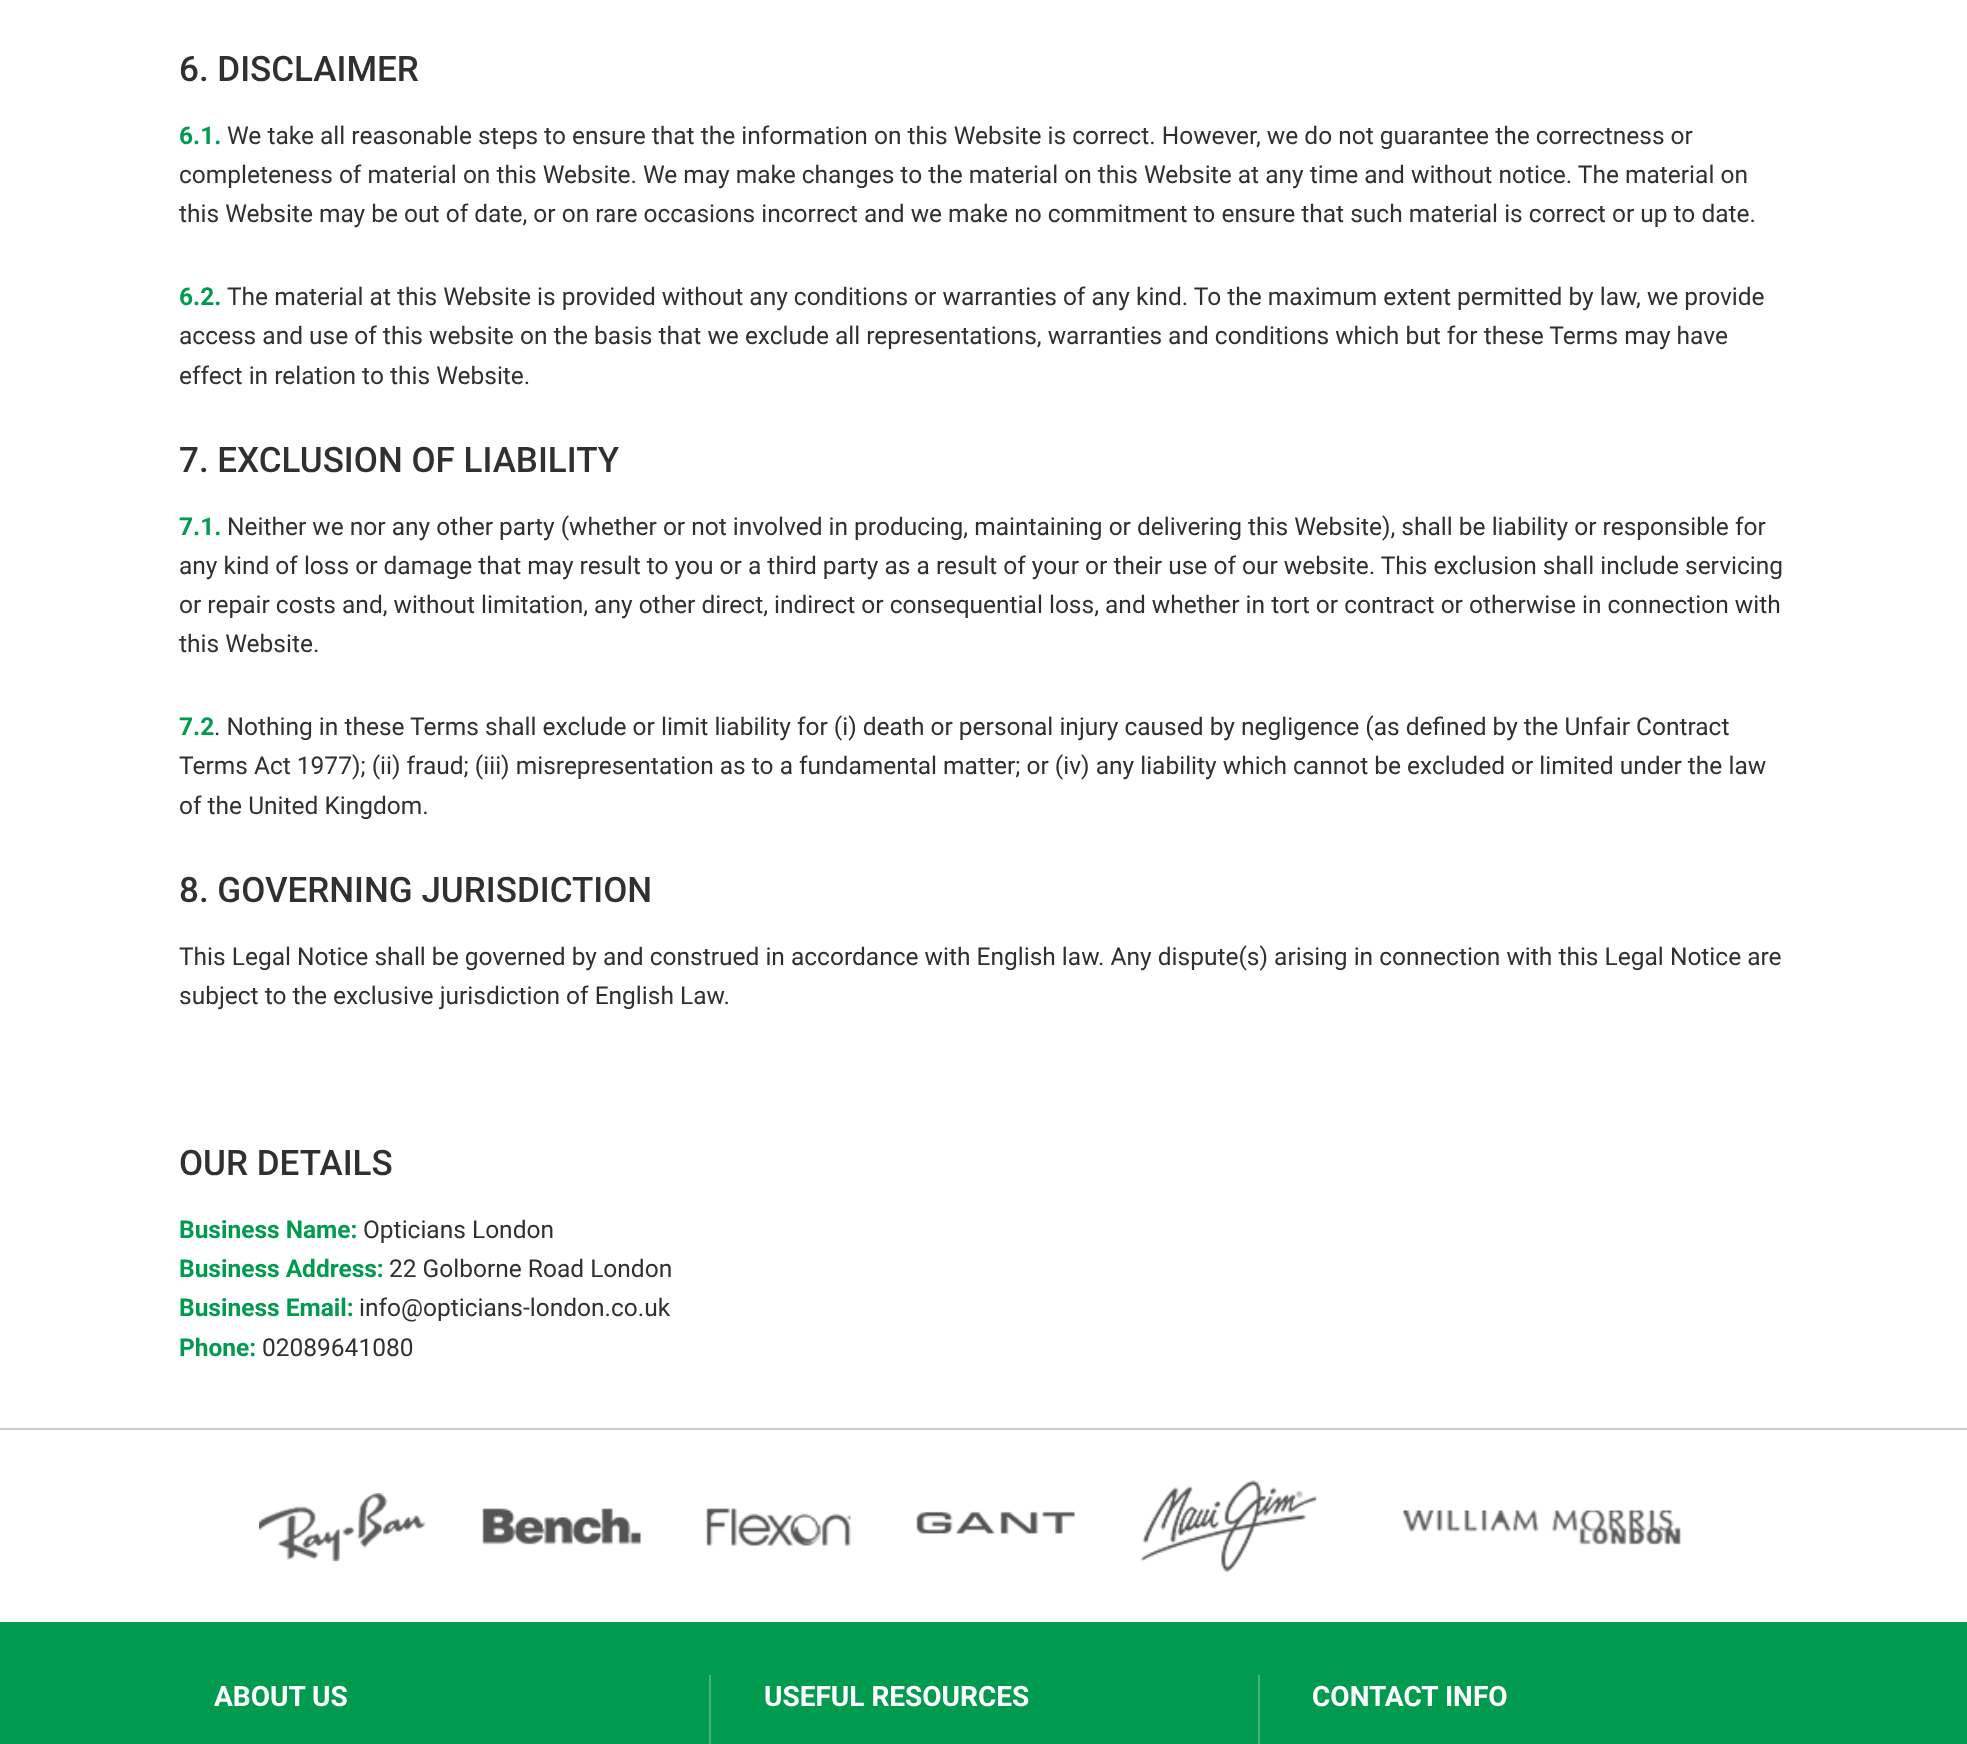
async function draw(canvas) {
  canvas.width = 1967;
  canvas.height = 1744;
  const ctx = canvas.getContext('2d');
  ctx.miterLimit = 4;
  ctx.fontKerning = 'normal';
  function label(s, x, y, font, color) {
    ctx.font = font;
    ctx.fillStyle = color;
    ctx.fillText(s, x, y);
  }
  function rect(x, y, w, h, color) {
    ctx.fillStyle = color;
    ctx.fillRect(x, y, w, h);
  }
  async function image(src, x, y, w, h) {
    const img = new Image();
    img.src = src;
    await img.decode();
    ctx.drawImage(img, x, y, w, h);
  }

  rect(0, 0, 1967, 1744, '#fff');
  label('6. DISCLAIMER', 179, 81, '500 35px Roboto', '#303030');
  label('6.1.', 179, 144, 'bold 24.5px Roboto', '#009b4f');
  label('We take all reasonable steps to ensure that the information on this Website is correct. However, we do not guarantee the correctness or', 227, 144, '24.5px Roboto', '#303030');
  label('completeness of material on this Website. We may make changes to the material on this Website at any time and without notice. The material on', 179, 183, '24.5px Roboto', '#303030');
  label('this Website may be out of date, or on rare occasions incorrect and we make no commitment to ensure that such material is correct or up to date.', 179, 222, '24.5px Roboto', '#303030');
  label('6.2.', 179, 305, 'bold 24.5px Roboto', '#009b4f');
  label('The material at this Website is provided without any conditions or warranties of any kind. To the maximum extent permitted by law, we provide', 227, 305, '24.5px Roboto', '#303030');
  label('access and use of this website on the basis that we exclude all representations, warranties and conditions which but for these Terms may have', 179, 344, '24.5px Roboto', '#303030');
  label('effect in relation to this Website.', 179, 384, '24.5px Roboto', '#303030');
  label('7. EXCLUSION OF LIABILITY', 179, 472, '500 35px Roboto', '#303030');
  label('7.1.', 179, 535, 'bold 24.5px Roboto', '#009b4f');
  label('Neither we nor any other party (whether or not involved in producing, maintaining or delivering this Website), shall be liability or responsible for', 227, 535, '24.5px Roboto', '#303030');
  label('any kind of loss or damage that may result to you or a third party as a result of your or their use of our website. This exclusion shall include servicing', 179, 574, '24.5px Roboto', '#303030');
  label('or repair costs and, without limitation, any other direct, indirect or consequential loss, and whether in tort or contract or otherwise in connection with', 179, 613, '24.5px Roboto', '#303030');
  label('this Website.', 179, 652, '24.5px Roboto', '#303030');
  label('7.2', 179, 735, 'bold 24.5px Roboto', '#009b4f');
  label('. Nothing in these Terms shall exclude or limit liability for (i) death or personal injury caused by negligence (as defined by the Unfair Contract', 214, 735, '24.5px Roboto', '#303030');
  label('Terms Act 1977); (ii) fraud; (iii) misrepresentation as to a fundamental matter; or (iv) any liability which cannot be excluded or limited under the law', 179, 774, '24.5px Roboto', '#303030');
  label('of the United Kingdom.', 179, 814, '24.5px Roboto', '#303030');
  label('8. GOVERNING JURISDICTION', 179, 902, '500 35px Roboto', '#303030');
  label('This Legal Notice shall be governed by and construed in accordance with English law. Any dispute(s) arising in connection with this Legal Notice are', 179, 965, '24.5px Roboto', '#303030');
  label('subject to the exclusive jurisdiction of English Law.', 179, 1004, '24.5px Roboto', '#303030');
  label('OUR DETAILS', 179, 1175, '500 35px Roboto', '#303030');
  label('Business Name:', 179, 1238, 'bold 24.5px Roboto', '#009b4f');
  label('Opticians London', 363, 1238, '24.5px Roboto', '#303030');
  label('Business Address:', 179, 1277, 'bold 24.5px Roboto', '#009b4f');
  label('22 Golborne Road London', 389, 1277, '24.5px Roboto', '#303030');
  label('Business Email:', 179, 1316, 'bold 24.5px Roboto', '#009b4f');
  label('info@opticians-london.co.uk', 359, 1316, '24.5px Roboto', '#303030');
  label('Phone:', 179, 1356, 'bold 24.5px Roboto', '#009b4f');
  label('02089641080', 262, 1356, '24.5px Roboto', '#303030');
  rect(0, 1428, 1967, 2, '#cacaca');
  await image('assets/img1.png', 259, 1493, 167, 69);
  await image('assets/img2.png', 482, 1508, 159, 37);
  await image('assets/img3.png', 706, 1508, 145, 38);
  await image('assets/img4.png', 916, 1511, 159, 23);
  await image('assets/img5.png', 1140, 1480, 177, 93);
  await image('assets/img6.png', 1403, 1510, 278, 35);
  rect(0, 1622, 1967, 122, '#009b4f');
  label('ABOUT US', 214, 1706, 'bold 28px Roboto', '#fff');
  rect(709, 1675, 2, 69, '#4daf7f');
  label('USEFUL RESOURCES', 764, 1706, 'bold 28px Roboto', '#fff');
  rect(1258, 1675, 2, 69, '#4daf7f');
  label('CONTACT INFO', 1312, 1706, 'bold 28px Roboto', '#fff');
}

draw(document.querySelector('canvas'));
